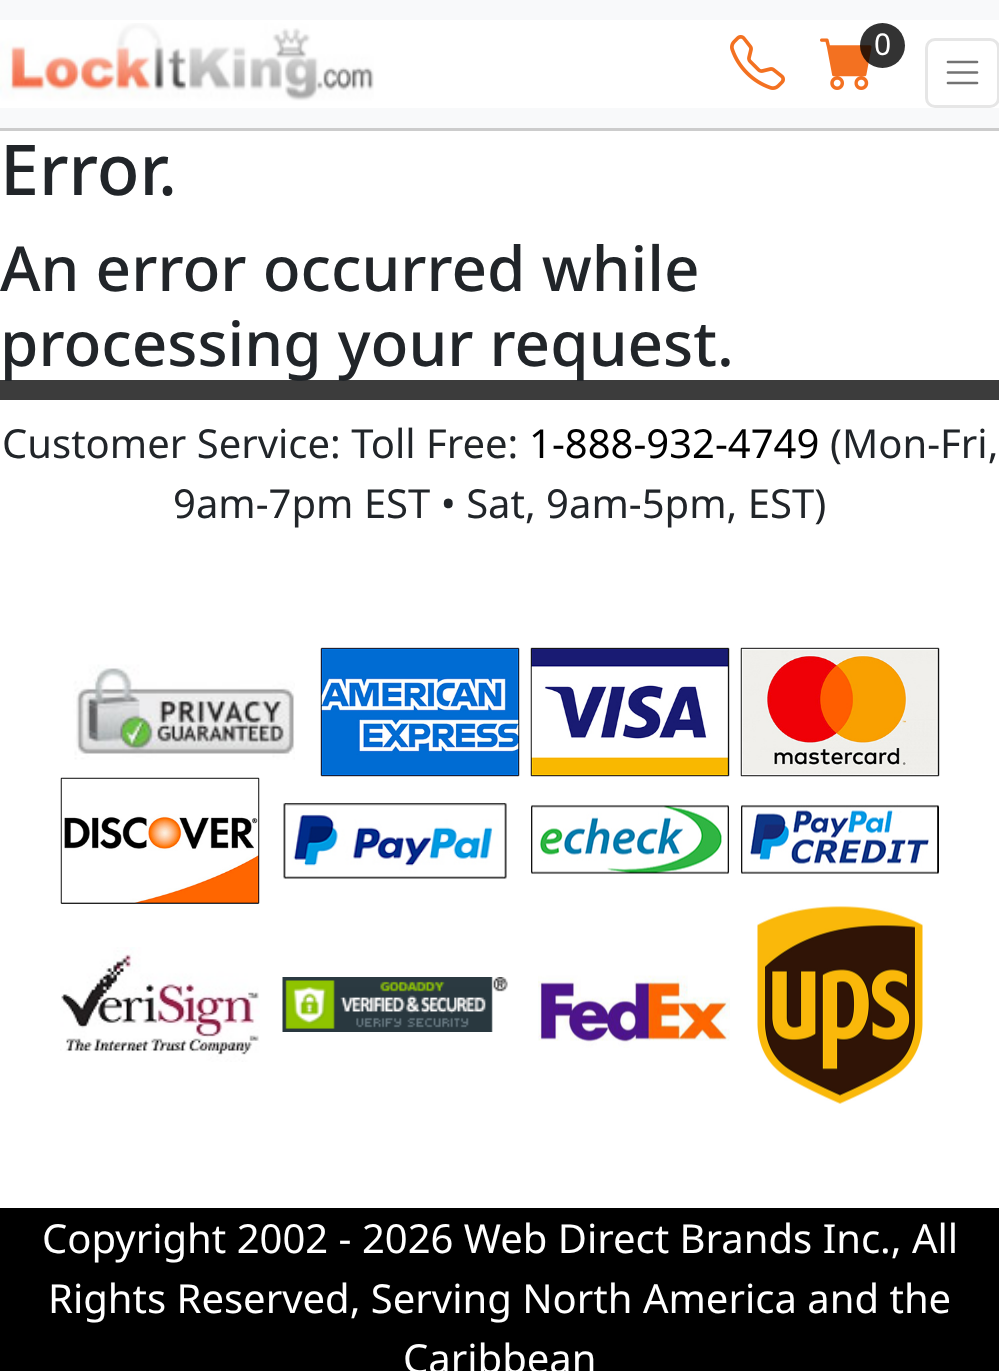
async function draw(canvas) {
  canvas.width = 999;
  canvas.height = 1371;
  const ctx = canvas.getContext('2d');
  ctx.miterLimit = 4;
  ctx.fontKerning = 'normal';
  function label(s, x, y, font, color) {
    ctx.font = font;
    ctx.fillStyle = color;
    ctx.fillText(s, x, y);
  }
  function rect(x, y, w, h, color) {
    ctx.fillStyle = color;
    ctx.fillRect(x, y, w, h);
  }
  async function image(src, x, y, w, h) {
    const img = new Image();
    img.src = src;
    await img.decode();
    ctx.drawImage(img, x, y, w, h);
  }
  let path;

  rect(0, 0, 999, 1371, '#3c3c3c');
  rect(0, 0, 999, 128, '#f8f9fa');
  rect(0, 128, 999, 3, '#ccc');
  rect(0, 20, 999, 88, '#fff');
  await image('assets/img1.png', 0, 23, 374, 78);
  await image('assets/img2.png', 730, 35, 55, 55);
  await image('assets/img3.png', 820, 38, 52, 52);
  ctx.fillStyle = '#000000cc';
  ctx.beginPath();
  ctx.arc(882.5, 45.5, 22.5, 0, 2 * Math.PI);
  ctx.fill();
  label('0', 874, 55, '30px Noto Sans', '#fff');
  ctx.beginPath();
  ctx.roundRect(926.5, 39.5, 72, 67, 8.5);
  ctx.strokeStyle = '#e6e6e6';
  ctx.lineWidth = 3;
  ctx.stroke();
  path = new Path2D('M948 62H977M948 72.5H977M948 83H977');
  ctx.strokeStyle = '#737373';
  ctx.lineWidth = 2.7;
  ctx.lineCap = 'round';
  ctx.stroke(path);
  rect(0, 131, 999, 249, '#fff');
  label('Error.', 0, 195, '500 70px Noto Sans', '#212529');
  label('An error occurred while', 0, 291, '500 62px Noto Sans', '#212529');
  label('processing your request.', 0, 366, '500 62px Noto Sans', '#212529');
  rect(0, 400, 999, 808, '#fff');
  label('Customer Service: Toll Free:', 2, 458, '40px Noto Sans', '#212529');
  label('1-888-932-4749', 529, 458, '40px Noto Sans', '#000');
  label('(Mon-Fri,', 830, 458, '40px Noto Sans', '#212529');
  label('9am-7pm EST • Sat, 9am-5pm, EST)', 173, 518, '40px Noto Sans', '#212529');
  await image('assets/img4.png', 73, 664, 222, 96);
  await image('assets/img5.png', 320, 647, 200, 130);
  await image('assets/img6.png', 530, 647, 200, 130);
  await image('assets/img7.png', 740, 647, 200, 130);
  await image('assets/img8.png', 60, 777, 200, 127);
  await image('assets/img9.png', 283, 803, 224, 76);
  await image('assets/img10.png', 531, 804, 199, 71);
  await image('assets/img11.png', 741, 804, 198, 70);
  await image('assets/img12.png', 60, 947, 200, 115);
  await image('assets/img13.png', 282, 977, 226, 55);
  await image('assets/img14.png', 538, 975, 192, 73);
  await image('assets/img15.png', 757, 906, 166, 198);
  rect(0, 1208, 999, 163, '#000');
  label('Copyright 2002 - 2026 Web Direct Brands Inc., All', 42, 1253, '40px Noto Sans', '#fff');
  label('Rights Reserved, Serving North America and the', 48, 1313, '40px Noto Sans', '#fff');
  label('Caribbean', 403, 1373, '40px Noto Sans', '#fff');
}

draw(document.querySelector('canvas'));
